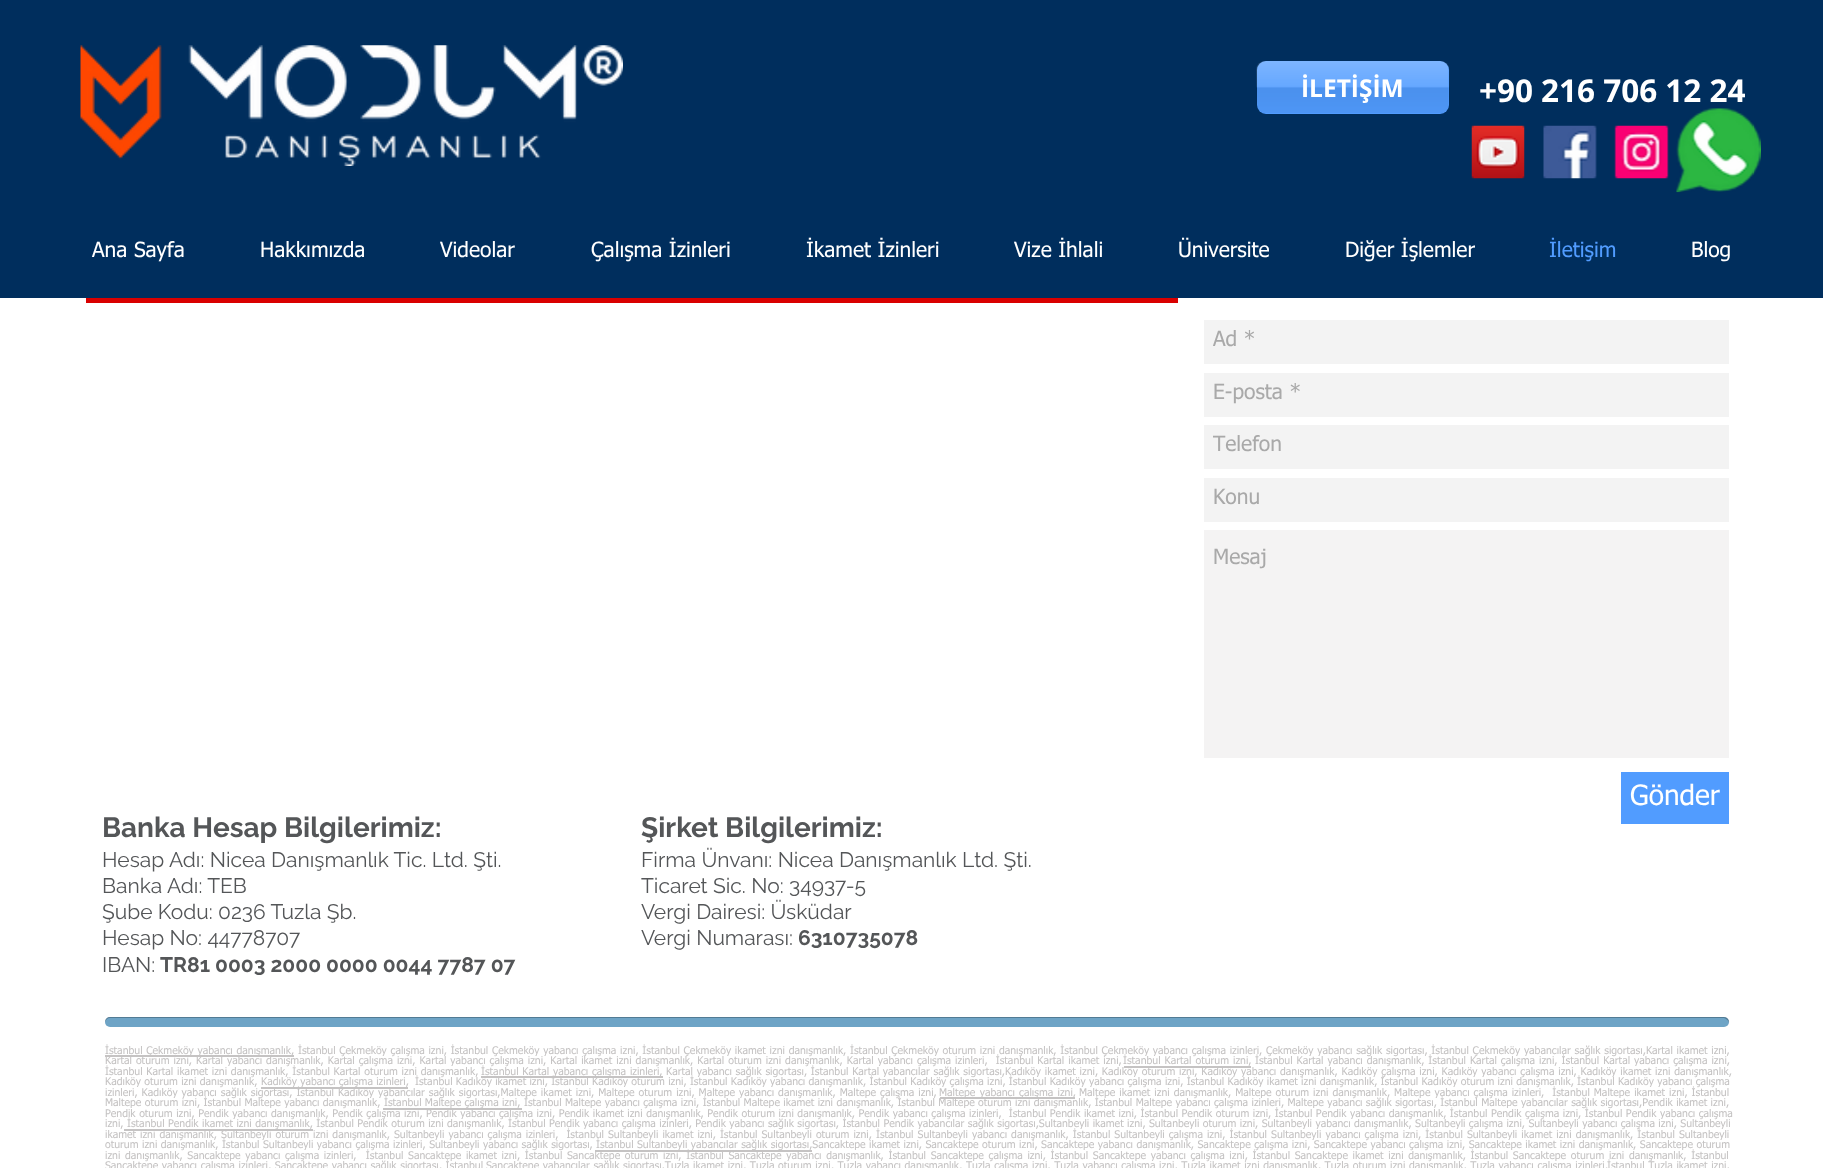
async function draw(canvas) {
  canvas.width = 1823;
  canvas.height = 1168;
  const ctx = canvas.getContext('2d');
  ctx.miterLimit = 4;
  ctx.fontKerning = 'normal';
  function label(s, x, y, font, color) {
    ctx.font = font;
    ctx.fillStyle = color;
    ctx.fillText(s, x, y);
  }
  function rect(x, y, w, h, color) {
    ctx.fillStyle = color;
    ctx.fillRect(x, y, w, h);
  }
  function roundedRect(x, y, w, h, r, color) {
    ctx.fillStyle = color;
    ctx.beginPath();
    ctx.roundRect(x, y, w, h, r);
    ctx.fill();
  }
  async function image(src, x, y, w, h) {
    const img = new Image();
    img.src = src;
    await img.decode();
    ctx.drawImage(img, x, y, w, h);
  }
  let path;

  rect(0, 0, 1823, 1168, '#fff');
  rect(0, 0, 1823, 298, '#002e5d');
  await image('assets/img1.png', 80, 45, 543, 121);
  roundedRect(1257, 61, 192, 53, 9, '#519cff');
  await image('assets/img2.png', 1256, 61, 194, 52);
  label('İLETİŞİM', 1301, 97, 'bold 24.5px Open Sans', '#fff');
  label('+90 216 706 12 24', 1479, 102, 'bold 31.5px Open Sans', '#fff');
  await image('assets/img3.png', 1471, 125, 54, 54);
  await image('assets/img4.png', 1543, 125, 54, 54);
  await image('assets/img5.png', 1614, 125, 55, 54);
  await image('assets/img6.png', 1676, 108, 85, 85);
  label('Ana Sayfa', 92, 257, '21px tahoma', '#fff');
  label('Hakkımızda', 260, 257, '21px tahoma', '#fff');
  label('Videolar', 440, 257, '21px tahoma', '#fff');
  label('Çalışma İzinleri', 591, 257, '21px tahoma', '#fff');
  label('İkamet İzinleri', 806, 257, '21px tahoma', '#fff');
  label('Vize İhlali', 1014, 257, '21px tahoma', '#fff');
  label('Üniversite', 1178, 257, '21px tahoma', '#fff');
  label('Diğer İşlemler', 1345, 257, '21px tahoma', '#fff');
  label('İletişim', 1549, 257, '21px tahoma', '#519cff');
  label('Blog', 1691, 257, '21px tahoma', '#fff');
  rect(86, 298, 1092, 5, '#d90000');
  rect(1204, 320, 525, 44, '#f3f3f3');
  label('Ad *', 1213, 346, '21px tahoma', '#a9a9a9');
  rect(1204, 373, 525, 44, '#f3f3f3');
  label('E-posta *', 1213, 399, '21px tahoma', '#a9a9a9');
  rect(1204, 425, 525, 44, '#f3f3f3');
  ctx.save();
  ctx.beginPath();
  ctx.rect(1213, 434, 511, 25);
  ctx.clip();
  label('Telefon', 1213, 451, '21px tahoma', '#a9a9a9');
  ctx.restore();
  rect(1204, 478, 525, 44, '#f3f3f3');
  label('Konu', 1213, 504, '21px tahoma', '#a9a9a9');
  rect(1204, 530, 525, 228, '#f4f3f3');
  label('Mesaj', 1213, 564, '21px tahoma', '#a9a9a9');
  rect(1621, 772, 108, 52, '#519cff');
  label('Gönder', 1630, 805, '28px tahoma', '#fff');
  label('Banka Hesap Bilgilerimiz:', 102, 837, 'bold 28px Raleway', '#545658');
  label('Hesap Adı: Nicea Danışmanlık Tic. Ltd. Şti.', 102, 867, '21px Raleway', '#545658');
  label('Banka Adı: TEB', 102, 893, '21px Raleway', '#545658');
  label('Şube Kodu: 0236 Tuzla Şb.', 102, 919, '21px Raleway', '#545658');
  label('Hesap No: 44778707', 102, 945, '21px Raleway', '#545658');
  label('IBAN:', 102, 972, '21px Raleway', '#545658');
  label('TR81 0003 2000 0000 0044 7787 07', 160, 972, 'bold 21px Raleway', '#545658');
  label('Şirket Bilgilerimiz:', 641, 837, 'bold 28px Raleway', '#545658');
  label('Firma Ünvanı: Nicea Danışmanlık Ltd. Şti.', 641, 867, '21px Raleway', '#545658');
  label('Ticaret Sic. No: 34937-5', 641, 893, '21px Raleway', '#545658');
  label('Vergi Dairesi: Üsküdar', 641, 919, '21px Raleway', '#545658');
  label('Vergi Numarası:', 641, 945, '21px Raleway', '#545658');
  label('6310735078', 798, 945, 'bold 21px Raleway', '#545658');
  roundedRect(105, 1017, 1624, 10, 5, '#6ea4c6');
  ctx.fillStyle = '#00000040';
  path = new Path2D('M110 1018H1724C1727 1019 1729 1021 1729 1023C1730 1020 1727 1017 1724 1017H110C107 1017 105 1019 105 1022C106 1020 107 1018 110 1018Z');
  ctx.fill(path);
  rect(105, 1055, 189, 2, '#c5c3c3');
  ctx.wordSpacing = '0.45px';
  label('İstanbul Çekmeköy yabancı danışmanlık,', 105, 1054, '10.5px tahoma', '#c5c3c3');
  label('İstanbul Çekmeköy çalışma izni, İstanbul Çekmeköy yabancı çalışma izni, İstanbul Çekmeköy ikamet izni danışmanlık, İstanbul Çekmeköy oturum izni danışmanlık, İstanbul Çekmeköy yabancı çalışma izinleri, Çekmeköy yabancı sağlık sigortası, İstanbul Çekmeköy yabancılar sağlık sigortası,Kartal ikamet izni,', 298, 1054, '10.5px tahoma', '#c5c3c3');
  ctx.wordSpacing = '0.75px';
  label('Kartal oturum izni, Kartal yabancı danışmanlık, Kartal çalışma izni, Kartal yabancı çalışma izni, Kartal ikamet izni danışmanlık, Kartal oturum izni danışmanlık, Kartal yabancı çalışma izinleri,  İstanbul Kartal ikamet izni,', 105, 1064, '10.5px tahoma', '#c5c3c3');
  label('İstanbul Kartal oturum izni,', 1123, 1064, '10.5px tahoma', '#c5c3c3');
  label('İstanbul Kartal yabancı danışmanlık, İstanbul Kartal çalışma izni, İstanbul Kartal yabancı çalışma izni,', 1255, 1064, '10.5px tahoma', '#c5c3c3');
  ctx.wordSpacing = '0.5px';
  label('İstanbul Kartal ikamet izni danışmanlık, İstanbul Kartal oturum izni danışmanlık,', 105, 1075, '10.5px tahoma', '#c5c3c3');
  rect(481, 1076, 182, 2, '#c5c3c3');
  label('İstanbul Kartal yabancı çalışma izinleri,', 481, 1075, '10.5px tahoma', '#c5c3c3');
  rect(1124, 1066, 127, 2, '#c5c3c3');
  label('Kartal yabancı sağlık sigortası, İstanbul Kartal yabancılar sağlık sigortası,Kadıköy ikamet izni, Kadıköy oturum izni, Kadıköy yabancı danışmanlık, Kadıköy çalışma izni, Kadıköy yabancı çalışma izni, Kadıköy ikamet izni danışmanlık,', 666, 1075, '10.5px tahoma', '#c5c3c3');
  ctx.wordSpacing = '0px';
  label('Kadıköy oturum izni danışmanlık,', 105, 1085, '10.5px tahoma', '#c5c3c3');
  rect(261, 1087, 147, 2, '#c5c3c3');
  label('Kadıköy yabancı çalışma izinleri,', 261, 1085, '10.5px tahoma', '#c5c3c3');
  label('İstanbul Kadıköy ikamet izni, İstanbul Kadıköy oturum izni, İstanbul Kadıköy yabancı danışmanlık, İstanbul Kadıköy çalışma izni, İstanbul Kadıköy yabancı çalışma izni, İstanbul Kadıköy ikamet izni danışmanlık, İstanbul Kadıköy oturum izni danışmanlık, İstanbul Kadıköy yabancı çalışma', 415, 1085, '10.5px tahoma', '#c5c3c3');
  ctx.wordSpacing = '0.7px';
  label('izinleri, Kadıköy yabancı sağlık sigortası, İstanbul Kadıköy yabancılar sağlık sigortası,Maltepe ikamet izni, Maltepe oturum izni, Maltepe yabancı danışmanlık, Maltepe çalışma izni,', 105, 1096, '10.5px tahoma', '#c5c3c3');
  rect(940, 1097, 135, 2, '#c5c3c3');
  ctx.wordSpacing = '1px';
  label('Maltepe yabancı çalışma izni,', 939, 1096, '10.5px tahoma', '#c5c3c3');
  ctx.wordSpacing = '0.7px';
  label('Maltepe ikamet izni danışmanlık, Maltepe oturum izni danışmanlık, Maltepe yabancı çalışma izinleri,  İstanbul Maltepe ikamet izni, İstanbul', 1079, 1096, '10.5px tahoma', '#c5c3c3');
  ctx.wordSpacing = '0.1px';
  label('Maltepe oturum izni, İstanbul Maltepe yabancı danışmanlık,', 105, 1106, '10.5px tahoma', '#c5c3c3');
  rect(383, 1108, 139, 2, '#c5c3c3');
  ctx.wordSpacing = '0px';
  label('İstanbul Maltepe çalışma izni,', 384, 1106, '10.5px tahoma', '#c5c3c3');
  ctx.wordSpacing = '0.1px';
  label('İstanbul Maltepe yabancı çalışma izni, İstanbul Maltepe ikamet izni danışmanlık, İstanbul Maltepe oturum izni danışmanlık, İstanbul Maltepe yabancı çalışma izinleri, Maltepe yabancı sağlık sigortası, İstanbul Maltepe yabancılar sağlık sigortası,Pendik ikamet izni,', 524, 1106, '10.5px tahoma', '#c5c3c3');
  ctx.wordSpacing = '0.25px';
  label('Pendik oturum izni, Pendik yabancı danışmanlık, Pendik çalışma izni, Pendik yabancı çalışma izni, Pendik ikamet izni danışmanlık, Pendik oturum izni danışmanlık, Pendik yabancı çalışma izinleri,  İstanbul Pendik ikamet izni, İstanbul Pendik oturum izni, İstanbul Pendik yabancı danışmanlık, İstanbul Pendik çalışma izni, İstanbul Pendik yabancı çalışma', 105, 1117, '10.5px tahoma', '#c5c3c3');
  ctx.wordSpacing = '0px';
  label('izni,', 105, 1127, '10.5px tahoma', '#c5c3c3');
  rect(124, 1129, 189, 2, '#c5c3c3');
  ctx.wordSpacing = '0.15px';
  label('İstanbul Pendik ikamet izni danışmanlık, İstanbul Pendik oturum izni danışmanlık, İstanbul Pendik yabancı çalışma izinleri, Pendik yabancı sağlık sigortası, İstanbul Pendik yabancılar sağlık sigortası,Sultanbeyli ikamet izni, Sultanbeyli oturum izni, Sultanbeyli yabancı danışmanlık, Sultanbeyli çalışma izni, Sultanbeyli yabancı çalışma izni, Sultanbeyli', 127, 1127, '10.5px tahoma', '#c5c3c3');
  ctx.wordSpacing = '0.75px';
  label('ikamet izni danışmanlık, Sultanbeyli oturum izni danışmanlık, Sultanbeyli yabancı çalışma izinleri,  İstanbul Sultanbeyli ikamet izni, İstanbul Sultanbeyli oturum izni, İstanbul Sultanbeyli yabancı danışmanlık, İstanbul Sultanbeyli çalışma izni, İstanbul Sultanbeyli yabancı çalışma izni, İstanbul Sultanbeyli ikamet izni danışmanlık, İstanbul Sultanbeyli', 105, 1138, '10.5px tahoma', '#c5c3c3');
  ctx.wordSpacing = '0.2px';
  label('oturum izni danışmanlık, İstanbul Sultanbeyli yabancı çalışma izinleri, Sultanbeyli yabancı sağlık sigortası,', 105, 1148, '10.5px tahoma', '#c5c3c3');
  rect(595, 1150, 217, 2, '#c5c3c3');
  label('İstanbul Sultanbeyli yabancılar sağlık sigortası,Sancaktepe ikamet izni, Sancaktepe oturum izni, Sancaktepe yabancı danışmanlık, Sancaktepe çalışma izni, Sancaktepe yabancı çalışma izni, Sancaktepe ikamet izni danışmanlık, Sancaktepe oturum', 596, 1148, '10.5px tahoma', '#c5c3c3');
  ctx.wordSpacing = '1.4px';
  label('izni danışmanlık, Sancaktepe yabancı çalışma izinleri,  İstanbul Sancaktepe ikamet izni, İstanbul Sancaktepe oturum izni, İstanbul Sancaktepe yabancı danışmanlık, İstanbul Sancaktepe çalışma izni, İstanbul Sancaktepe yabancı çalışma izni, İstanbul Sancaktepe ikamet izni danışmanlık, İstanbul Sancaktepe oturum izni danışmanlık, İstanbul', 105, 1159, '10.5px tahoma', '#c5c3c3');
  ctx.wordSpacing = '0.4px';
  label('Sancaktepe yabancı çalışma izinleri, Sancaktepe yabancı sağlık sigortası, İstanbul', 105, 1169, '10.5px tahoma', '#c5c3c3');
  label('Sancaktepe yabancılar sağlık sigortası,Tuzla ikamet izni, Tuzla oturum izni, Tuzla yabancı danışmanlık, Tuzla çalışma izni, Tuzla yabancı çalışma izni, Tuzla ikamet izni danışmanlık, Tuzla oturum izni danışmanlık, Tuzla yabancı çalışma izinleri,', 486, 1169, '10.5px tahoma', '#c5c3c3');
  label('İstanbul Tuzla ikamet izni,', 1607, 1169, '10.5px tahoma', '#c5c3c3');
}

draw(document.querySelector('canvas'));
